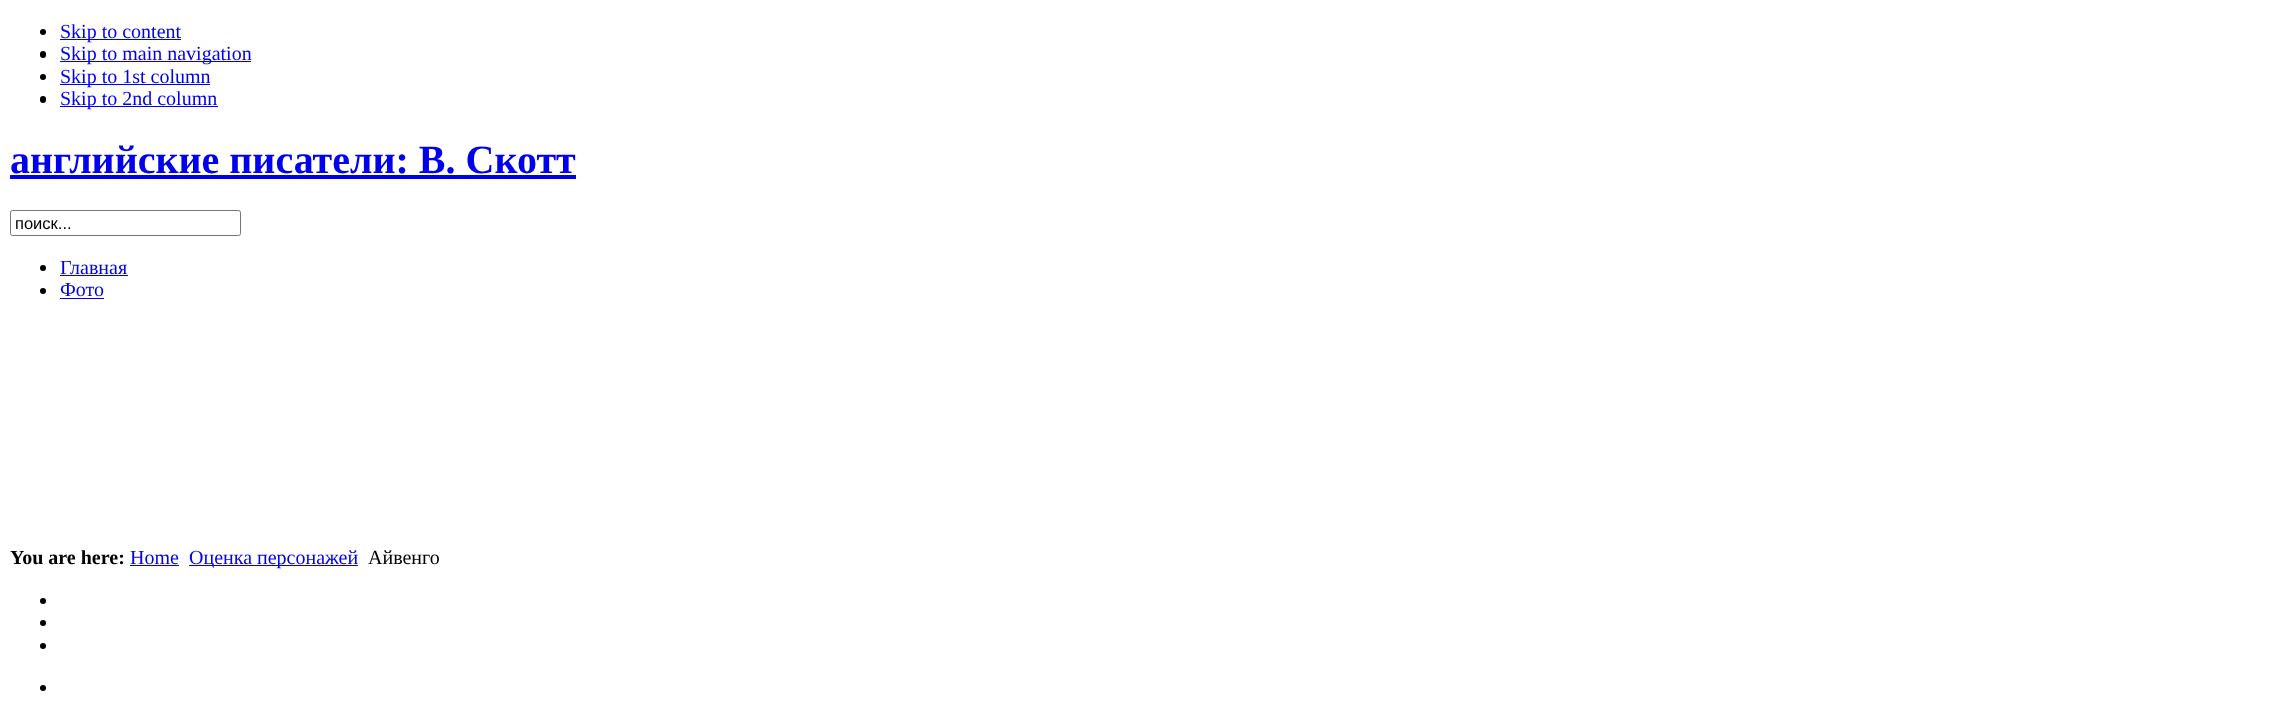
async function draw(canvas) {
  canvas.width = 2271;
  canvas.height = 704;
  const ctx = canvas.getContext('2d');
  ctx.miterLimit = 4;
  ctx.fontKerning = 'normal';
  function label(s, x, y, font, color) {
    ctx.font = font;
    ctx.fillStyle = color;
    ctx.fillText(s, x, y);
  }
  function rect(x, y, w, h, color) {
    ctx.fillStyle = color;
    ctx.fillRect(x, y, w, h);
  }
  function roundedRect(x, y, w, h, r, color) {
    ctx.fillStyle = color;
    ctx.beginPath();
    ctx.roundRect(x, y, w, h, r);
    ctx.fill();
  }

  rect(0, 0, 2271, 704, '#fff');
  ctx.fillStyle = '#000';
  ctx.beginPath();
  ctx.arc(43, 32, 3, 0, 2 * Math.PI);
  ctx.fill();
  rect(60, 39, 121, 1, '#00e');
  label('Skip to content', 60, 38, '20px Liberation Serif', '#00e');
  roundedRect(40, 51, 6, 7, 3, '#000');
  rect(60, 61, 191, 1, '#00e');
  label('Skip to main navigation', 60, 60, '20px Liberation Serif', '#00e');
  ctx.fillStyle = '#000';
  ctx.beginPath();
  ctx.arc(43, 77, 3, 0, 2 * Math.PI);
  ctx.fill();
  rect(60, 84, 150, 1, '#00e');
  label('Skip to 1st column', 60, 83, '20px Liberation Serif', '#00e');
  roundedRect(40, 96, 6, 7, 3, '#000');
  rect(60, 106, 158, 1, '#00e');
  label('Skip to 2nd column', 60, 105, '20px Liberation Serif', '#00e');
  label('английские писатели: В. Скотт', 10, 173, 'bold 40px Liberation Serif', '#00e');
  rect(10, 175, 566, 4, '#00e');
  ctx.beginPath();
  ctx.roundRect(10.5, 210.5, 230, 25, 2);
  ctx.strokeStyle = '#767676';
  ctx.stroke();
  label('поиск...', 15, 229, '16.5px Liberation Sans', '#000');
  ctx.beginPath();
  ctx.arc(43, 268, 3, 0, 2 * Math.PI);
  ctx.fill();
  label('Главная', 60, 274, '20px Liberation Serif', '#00e');
  rect(60, 275, 68, 1, '#00e');
  ctx.fillStyle = '#000';
  ctx.beginPath();
  ctx.arc(43, 291, 3, 0, 2 * Math.PI);
  ctx.fill();
  label('Фото', 60, 296, '20px Liberation Serif', '#00e');
  rect(60, 298, 44, 1, '#00e');
  label('You are here:', 10, 564, 'bold 20px Liberation Serif', '#000');
  label('Home', 130, 564, '20px Liberation Serif', '#00e');
  rect(130, 565, 49, 1, '#00e');
  rect(189, 565, 169, 1, '#00e');
  label('Оценка персонажей', 189, 564, '20px Liberation Serif', '#00e');
  label('Айвенго', 368, 564, '20px Liberation Serif', '#000');
  ctx.beginPath();
  ctx.arc(43, 601, 3, 0, 2 * Math.PI);
  ctx.fill();
  ctx.beginPath();
  ctx.arc(43, 623, 3, 0, 2 * Math.PI);
  ctx.fill();
  ctx.beginPath();
  ctx.arc(43, 646, 3, 0, 2 * Math.PI);
  ctx.fill();
  ctx.beginPath();
  ctx.arc(43, 688, 3, 0, 2 * Math.PI);
  ctx.fill();
}

draw(document.querySelector('canvas'));
